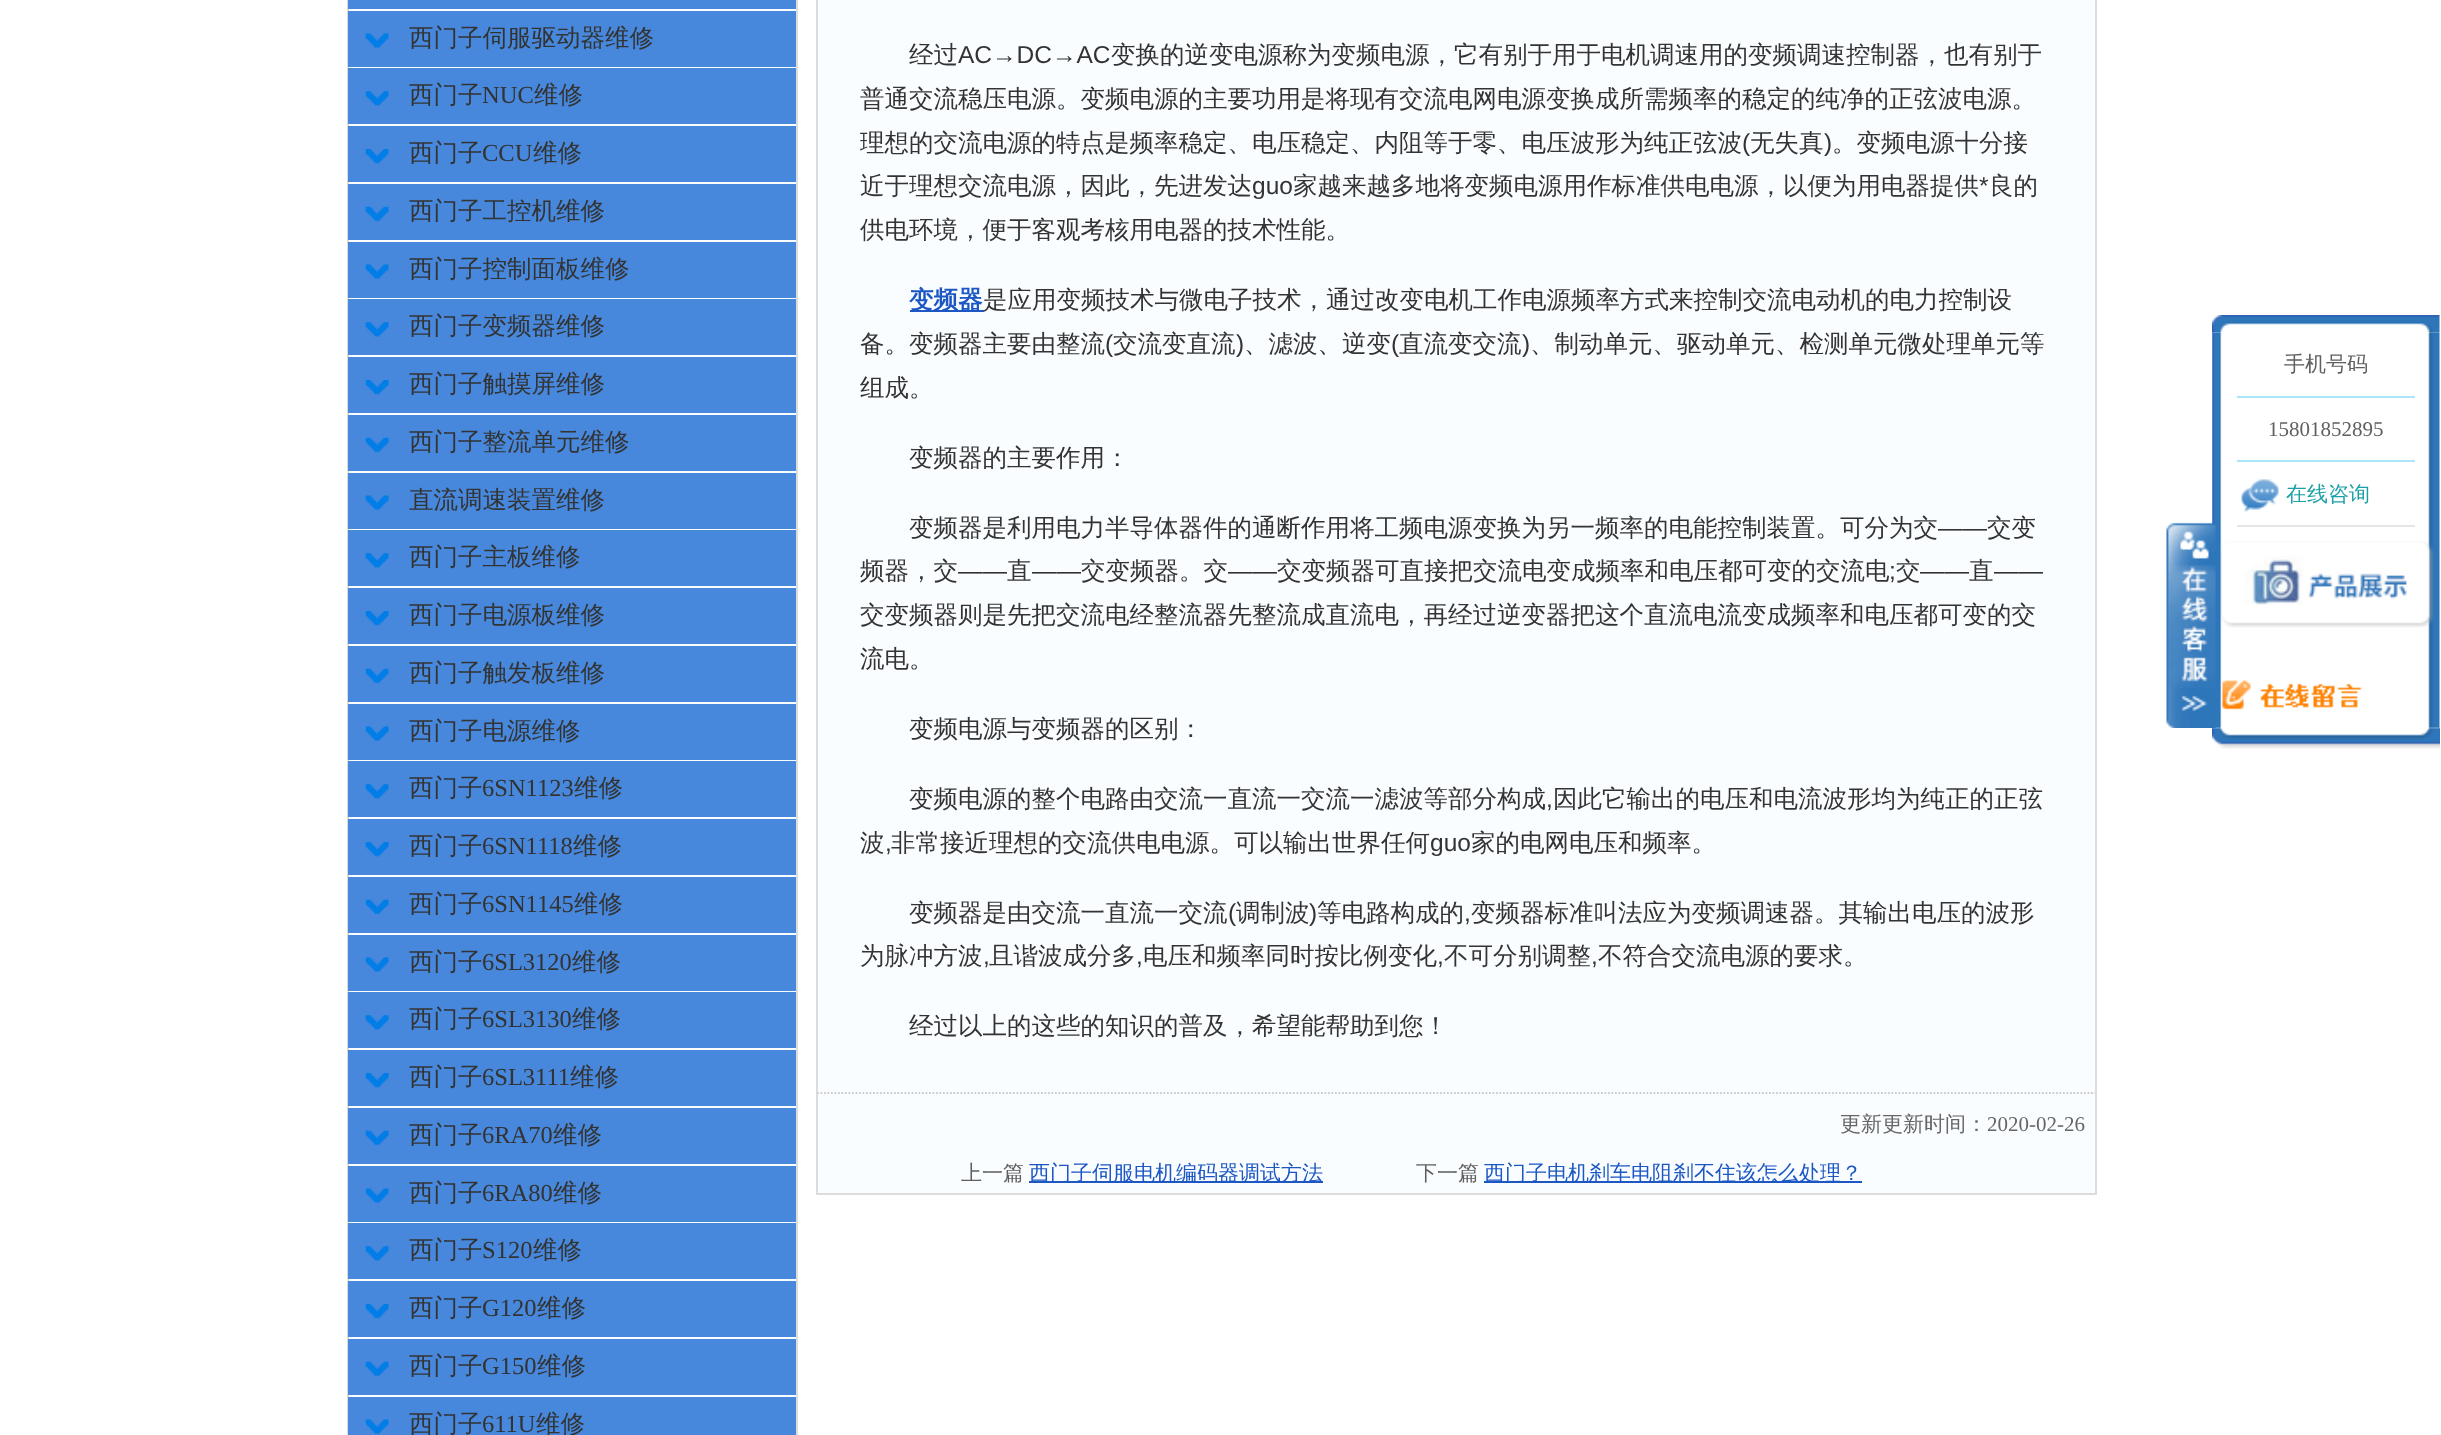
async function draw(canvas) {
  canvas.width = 2441;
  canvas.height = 1435;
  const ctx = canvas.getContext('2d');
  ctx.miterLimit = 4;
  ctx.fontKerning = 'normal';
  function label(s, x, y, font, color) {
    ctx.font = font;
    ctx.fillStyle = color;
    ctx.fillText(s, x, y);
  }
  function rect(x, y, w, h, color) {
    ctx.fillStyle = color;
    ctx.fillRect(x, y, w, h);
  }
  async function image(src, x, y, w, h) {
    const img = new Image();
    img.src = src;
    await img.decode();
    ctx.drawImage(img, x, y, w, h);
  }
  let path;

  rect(0, 0, 2441, 1435, '#fff');
  rect(349, 9, 447, 1388, '#fafdff');
  rect(796, 0, 2, 1435, '#dcdcdc');
  rect(347, 0, 2, 1435, '#dcdcdc');
  rect(348, 0, 448, 9, '#4788dc');
  rect(348, 11, 448, 56, '#4788dc');
  await image('assets/img1.png', 365, 33, 24, 15);
  label('西门子伺服驱动器维修', 409, 46, '500 24.5px WenQuanYi Zen Hei', '#333');
  rect(348, 68, 448, 56, '#4788dc');
  await image('assets/img2.png', 365, 91, 24, 15);
  label('西门子', 409, 103, '500 24.5px WenQuanYi Zen Hei', '#333');
  label('NUC', 482, 103, '24.5px Liberation Serif', '#333');
  label('维修', 534, 103, '500 24.5px WenQuanYi Zen Hei', '#333');
  rect(348, 126, 448, 56, '#4788dc');
  await image('assets/img3.png', 365, 149, 24, 15);
  label('西门子', 409, 161, '500 24.5px WenQuanYi Zen Hei', '#333');
  label('CCU', 482, 161, '24.5px Liberation Serif', '#333');
  label('维修', 533, 161, '500 24.5px WenQuanYi Zen Hei', '#333');
  rect(348, 184, 448, 56, '#4788dc');
  await image('assets/img4.png', 365, 206, 24, 16);
  label('西门子工控机维修', 409, 219, '500 24.5px WenQuanYi Zen Hei', '#333');
  rect(348, 242, 448, 56, '#4788dc');
  await image('assets/img1.png', 365, 264, 24, 15);
  label('西门子控制面板维修', 409, 277, '500 24.5px WenQuanYi Zen Hei', '#333');
  rect(348, 299, 448, 56, '#4788dc');
  await image('assets/img2.png', 365, 322, 24, 15);
  label('西门子变频器维修', 409, 334, '500 24.5px WenQuanYi Zen Hei', '#333');
  rect(348, 357, 448, 56, '#4788dc');
  await image('assets/img3.png', 365, 380, 24, 15);
  label('西门子触摸屏维修', 409, 392, '500 24.5px WenQuanYi Zen Hei', '#333');
  rect(348, 415, 448, 56, '#4788dc');
  await image('assets/img4.png', 365, 437, 24, 16);
  label('西门子整流单元维修', 409, 450, '500 24.5px WenQuanYi Zen Hei', '#333');
  rect(348, 473, 448, 56, '#4788dc');
  await image('assets/img1.png', 365, 495, 24, 15);
  label('直流调速装置维修', 409, 508, '500 24.5px WenQuanYi Zen Hei', '#333');
  rect(348, 530, 448, 56, '#4788dc');
  await image('assets/img2.png', 365, 553, 24, 15);
  label('西门子主板维修', 409, 565, '500 24.5px WenQuanYi Zen Hei', '#333');
  rect(348, 588, 448, 56, '#4788dc');
  await image('assets/img5.png', 365, 611, 24, 15);
  label('西门子电源板维修', 409, 623, '500 24.5px WenQuanYi Zen Hei', '#333');
  rect(348, 646, 448, 56, '#4788dc');
  await image('assets/img6.png', 365, 668, 24, 16);
  label('西门子触发板维修', 409, 681, '500 24.5px WenQuanYi Zen Hei', '#333');
  rect(348, 704, 448, 56, '#4788dc');
  await image('assets/img1.png', 365, 726, 24, 15);
  label('西门子电源维修', 409, 739, '500 24.5px WenQuanYi Zen Hei', '#333');
  rect(348, 761, 448, 56, '#4788dc');
  await image('assets/img7.png', 365, 784, 24, 15);
  label('西门子', 409, 796, '500 24.5px WenQuanYi Zen Hei', '#333');
  label('6SN1123', 482, 796, '24.5px Liberation Serif', '#333');
  label('维修', 574, 796, '500 24.5px WenQuanYi Zen Hei', '#333');
  rect(348, 819, 448, 56, '#4788dc');
  await image('assets/img3.png', 365, 842, 24, 15);
  label('西门子', 409, 854, '500 24.5px WenQuanYi Zen Hei', '#333');
  label('6SN1118', 482, 854, '24.5px Liberation Serif', '#333');
  label('维修', 573, 854, '500 24.5px WenQuanYi Zen Hei', '#333');
  rect(348, 877, 448, 56, '#4788dc');
  await image('assets/img4.png', 365, 899, 24, 16);
  label('西门子', 409, 912, '500 24.5px WenQuanYi Zen Hei', '#333');
  label('6SN1145', 482, 912, '24.5px Liberation Serif', '#333');
  label('维修', 574, 912, '500 24.5px WenQuanYi Zen Hei', '#333');
  rect(348, 935, 448, 56, '#4788dc');
  await image('assets/img1.png', 365, 957, 24, 15);
  label('西门子', 409, 970, '500 24.5px WenQuanYi Zen Hei', '#333');
  label('6SL3120', 482, 970, '24.5px Liberation Serif', '#333');
  label('维修', 572, 970, '500 24.5px WenQuanYi Zen Hei', '#333');
  rect(348, 992, 448, 56, '#4788dc');
  await image('assets/img2.png', 365, 1015, 24, 15);
  label('西门子', 409, 1027, '500 24.5px WenQuanYi Zen Hei', '#333');
  label('6SL3130', 482, 1027, '24.5px Liberation Serif', '#333');
  label('维修', 572, 1027, '500 24.5px WenQuanYi Zen Hei', '#333');
  rect(348, 1050, 448, 56, '#4788dc');
  await image('assets/img3.png', 365, 1073, 24, 15);
  label('西门子', 409, 1085, '500 24.5px WenQuanYi Zen Hei', '#333');
  label('6SL3111', 482, 1085, '24.5px Liberation Serif', '#333');
  label('维修', 570, 1085, '500 24.5px WenQuanYi Zen Hei', '#333');
  rect(348, 1108, 448, 56, '#4788dc');
  await image('assets/img4.png', 365, 1130, 24, 16);
  label('西门子', 409, 1143, '500 24.5px WenQuanYi Zen Hei', '#333');
  label('6RA70', 482, 1143, '24.5px Liberation Serif', '#333');
  label('维修', 553, 1143, '500 24.5px WenQuanYi Zen Hei', '#333');
  rect(348, 1166, 448, 56, '#4788dc');
  await image('assets/img1.png', 365, 1188, 24, 15);
  label('西门子', 409, 1201, '500 24.5px WenQuanYi Zen Hei', '#333');
  label('6RA80', 482, 1201, '24.5px Liberation Serif', '#333');
  label('维修', 553, 1201, '500 24.5px WenQuanYi Zen Hei', '#333');
  rect(348, 1223, 448, 56, '#4788dc');
  await image('assets/img2.png', 365, 1246, 24, 15);
  label('西门子', 409, 1258, '500 24.5px WenQuanYi Zen Hei', '#333');
  label('S120', 482, 1258, '24.5px Liberation Serif', '#333');
  label('维修', 533, 1258, '500 24.5px WenQuanYi Zen Hei', '#333');
  rect(348, 1281, 448, 56, '#4788dc');
  await image('assets/img3.png', 365, 1304, 24, 15);
  label('西门子', 409, 1316, '500 24.5px WenQuanYi Zen Hei', '#333');
  label('G120', 482, 1316, '24.5px Liberation Serif', '#333');
  label('维修', 537, 1316, '500 24.5px WenQuanYi Zen Hei', '#333');
  rect(348, 1339, 448, 56, '#4788dc');
  await image('assets/img4.png', 365, 1361, 24, 16);
  label('西门子', 409, 1374, '500 24.5px WenQuanYi Zen Hei', '#333');
  label('G150', 482, 1374, '24.5px Liberation Serif', '#333');
  label('维修', 537, 1374, '500 24.5px WenQuanYi Zen Hei', '#333');
  rect(348, 1397, 448, 38, '#4788dc');
  await image('assets/img1.png', 365, 1419, 24, 15);
  label('西门子', 409, 1432, '500 24.5px WenQuanYi Zen Hei', '#333');
  label('611U', 482, 1432, '24.5px Liberation Serif', '#333');
  label('维修', 536, 1432, '500 24.5px WenQuanYi Zen Hei', '#333');
  ctx.fillStyle = '#fafdff';
  ctx.beginPath();
  ctx.rect(817, -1, 1279, 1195);
  ctx.fill();
  ctx.strokeStyle = '#dcdcdc';
  ctx.lineWidth = 2;
  ctx.stroke();
  label('经过', 909, 63, '500 24.5px WenQuanYi Zen Hei', '#333');
  label('AC→DC→AC', 958, 63, '24.5px Liberation Sans', '#333');
  label('变换的逆变电源称为变频电源，它有别于用于电机调速用的变频调速控制器，也有别于', 1111, 63, '500 24.5px WenQuanYi Zen Hei', '#333');
  label('普通交流稳压电源。变频电源的主要功用是将现有交流电网电源变换成所需频率的稳定的纯净的正弦波电源。', 860, 107, '500 24.5px WenQuanYi Zen Hei', '#333');
  label('理想的交流电源的特点是频率稳定、电压稳定、内阻等于零、电压波形为纯正弦波', 860, 151, '500 24.5px WenQuanYi Zen Hei', '#333');
  label('(', 1742, 151, '24.5px Liberation Sans', '#333');
  label('无失真', 1750, 151, '500 24.5px WenQuanYi Zen Hei', '#333');
  label(')', 1824, 151, '24.5px Liberation Sans', '#333');
  label('。变频电源十分接', 1832, 151, '500 24.5px WenQuanYi Zen Hei', '#333');
  label('近于理想交流电源，因此，先进发达', 860, 194, '500 24.5px WenQuanYi Zen Hei', '#333');
  label('guo', 1252, 194, '24.5px Liberation Sans', '#333');
  label('家越来越多地将变频电源用作标准供电电源，以便为用电器提供', 1293, 194, '500 24.5px WenQuanYi Zen Hei', '#333');
  label('*', 1979, 194, '24.5px Liberation Sans', '#333');
  label('良的', 1989, 194, '500 24.5px WenQuanYi Zen Hei', '#333');
  label('供电环境，便于客观考核用电器的技术性能。', 860, 238, '500 24.5px WenQuanYi Zen Hei', '#333');
  rect(910, 310, 74, 2, '#1c57c4');
  label('变频器', 909, 308, 'bold 24.5px WenQuanYi Zen Hei', '#1c57c4');
  label('是应用变频技术与微电子技术，通过改变电机工作电源频率方式来控制交流电动机的电力控制设', 983, 308, '500 24.5px WenQuanYi Zen Hei', '#333');
  label('备。变频器主要由整流', 860, 352, '500 24.5px WenQuanYi Zen Hei', '#333');
  label('(', 1105, 352, '24.5px Liberation Sans', '#333');
  label('交流变直流', 1113, 352, '500 24.5px WenQuanYi Zen Hei', '#333');
  label(')', 1236, 352, '24.5px Liberation Sans', '#333');
  label('、滤波、逆变', 1244, 352, '500 24.5px WenQuanYi Zen Hei', '#333');
  label('(', 1391, 352, '24.5px Liberation Sans', '#333');
  label('直流变交流', 1399, 352, '500 24.5px WenQuanYi Zen Hei', '#333');
  label(')', 1522, 352, '24.5px Liberation Sans', '#333');
  label('、制动单元、驱动单元、检测单元微处理单元等', 1530, 352, '500 24.5px WenQuanYi Zen Hei', '#333');
  label('组成。', 860, 396, '500 24.5px WenQuanYi Zen Hei', '#333');
  label('变频器的主要作用：', 909, 466, '500 24.5px WenQuanYi Zen Hei', '#333');
  label('变频器是利用电力半导体器件的通断作用将工频电源变换为另一频率的电能控制装置。可分为交', 909, 536, '500 24.5px WenQuanYi Zen Hei', '#333');
  label('——', 1938, 536, '24.5px Liberation Sans', '#333');
  label('交变', 1987, 536, '500 24.5px WenQuanYi Zen Hei', '#333');
  label('频器，交', 860, 579, '500 24.5px WenQuanYi Zen Hei', '#333');
  label('——', 958, 579, '24.5px Liberation Sans', '#333');
  label('直', 1007, 579, '500 24.5px WenQuanYi Zen Hei', '#333');
  label('——', 1032, 579, '24.5px Liberation Sans', '#333');
  label('交变频器。交', 1081, 579, '500 24.5px WenQuanYi Zen Hei', '#333');
  label('——', 1228, 579, '24.5px Liberation Sans', '#333');
  label('交变频器可直接把交流电变成频率和电压都可变的交流电', 1277, 579, '500 24.5px WenQuanYi Zen Hei', '#333');
  label(';', 1889, 579, '24.5px Liberation Sans', '#333');
  label('交', 1896, 579, '500 24.5px WenQuanYi Zen Hei', '#333');
  label('——', 1920, 579, '24.5px Liberation Sans', '#333');
  label('直', 1969, 579, '500 24.5px WenQuanYi Zen Hei', '#333');
  label('——', 1994, 579, '24.5px Liberation Sans', '#333');
  label('交变频器则是先把交流电经整流器先整流成直流电，再经过逆变器把这个直流电流变成频率和电压都可变的交', 860, 623, '500 24.5px WenQuanYi Zen Hei', '#333');
  label('流电。', 860, 667, '500 24.5px WenQuanYi Zen Hei', '#333');
  label('变频电源与变频器的区别：', 909, 737, '500 24.5px WenQuanYi Zen Hei', '#333');
  label('变频电源的整个电路由交流一直流一交流一滤波等部分构成', 909, 807, '500 24.5px WenQuanYi Zen Hei', '#333');
  label(',', 1546, 807, '24.5px Liberation Sans', '#333');
  label('因此它输出的电压和电流波形均为纯正的正弦', 1553, 807, '500 24.5px WenQuanYi Zen Hei', '#333');
  label('波', 860, 851, '500 24.5px WenQuanYi Zen Hei', '#333');
  label(',', 885, 851, '24.5px Liberation Sans', '#333');
  label('非常接近理想的交流供电电源。可以输出世界任何', 891, 851, '500 24.5px WenQuanYi Zen Hei', '#333');
  label('guo', 1430, 851, '24.5px Liberation Sans', '#333');
  label('家的电网电压和频率。', 1471, 851, '500 24.5px WenQuanYi Zen Hei', '#333');
  label('变频器是由交流一直流一交流', 909, 921, '500 24.5px WenQuanYi Zen Hei', '#333');
  label('(', 1228, 921, '24.5px Liberation Sans', '#333');
  label('调制波', 1236, 921, '500 24.5px WenQuanYi Zen Hei', '#333');
  label(')', 1309, 921, '24.5px Liberation Sans', '#333');
  label('等电路构成的', 1317, 921, '500 24.5px WenQuanYi Zen Hei', '#333');
  label(',', 1464, 921, '24.5px Liberation Sans', '#333');
  label('变频器标准叫法应为变频调速器。其输出电压的波形', 1471, 921, '500 24.5px WenQuanYi Zen Hei', '#333');
  label('为脉冲方波', 860, 964, '500 24.5px WenQuanYi Zen Hei', '#333');
  label(',', 983, 964, '24.5px Liberation Sans', '#333');
  label('且谐波成分多', 989, 964, '500 24.5px WenQuanYi Zen Hei', '#333');
  label(',', 1136, 964, '24.5px Liberation Sans', '#333');
  label('电压和频率同时按比例变化', 1143, 964, '500 24.5px WenQuanYi Zen Hei', '#333');
  label(',', 1437, 964, '24.5px Liberation Sans', '#333');
  label('不可分别调整', 1444, 964, '500 24.5px WenQuanYi Zen Hei', '#333');
  label(',', 1591, 964, '24.5px Liberation Sans', '#333');
  label('不符合交流电源的要求。', 1598, 964, '500 24.5px WenQuanYi Zen Hei', '#333');
  label('经过以上的这些的知识的普及，希望能帮助到您！', 909, 1034, '500 24.5px WenQuanYi Zen Hei', '#333');
  path = new Path2D('M817 1093H2095');
  ctx.strokeStyle = '#ccc';
  ctx.lineWidth = 1.8;
  ctx.setLineDash([1.75, 1.75]);
  ctx.stroke(path);
  label('更新更新时间：', 1840, 1131, '500 21px WenQuanYi Zen Hei', '#666');
  label('2020-02-26', 1987, 1131, '21px Liberation Serif', '#666');
  label('上一篇', 961, 1180, '500 21px WenQuanYi Zen Hei', '#606060');
  rect(1029, 1181, 294, 2, '#1c57c4');
  label('西门子伺服电机编码器调试方法', 1029, 1180, '500 21px WenQuanYi Zen Hei', '#1c57c4');
  label('下一篇', 1416, 1180, '500 21px WenQuanYi Zen Hei', '#606060');
  rect(1484, 1181, 378, 2, '#1c57c4');
  label('西门子电机刹车电阻刹不住该怎么处理？', 1484, 1180, '500 21px WenQuanYi Zen Hei', '#1c57c4');
  await image('assets/img8.png', 2212, 727, 228, 22);
  await image('assets/img9.png', 2212, 315, 228, 18);
  await image('assets/img10.png', 2212, 332, 228, 397);
  rect(2237, 396, 178, 2, '#ace5f9');
  label('手机号码', 2284, 371, '500 21px WenQuanYi Zen Hei', '#606060');
  rect(2237, 460, 178, 2, '#ace5f9');
  label('15801852895', 2268, 436, '21px Liberation Serif', '#606060');
  rect(2237, 525, 178, 2, '#e6e5e4');
  await image('assets/img11.png', 2241, 479, 38, 33);
  label('在线咨询', 2286, 501, '500 21px WenQuanYi Zen Hei', '#1c9fa6');
  await image('assets/img12.png', 2221, 541, 213, 87);
  await image('assets/img13.png', 2222, 680, 140, 30);
  await image('assets/img14.png', 2166, 522, 50, 206);
}

draw(document.querySelector('canvas'));
